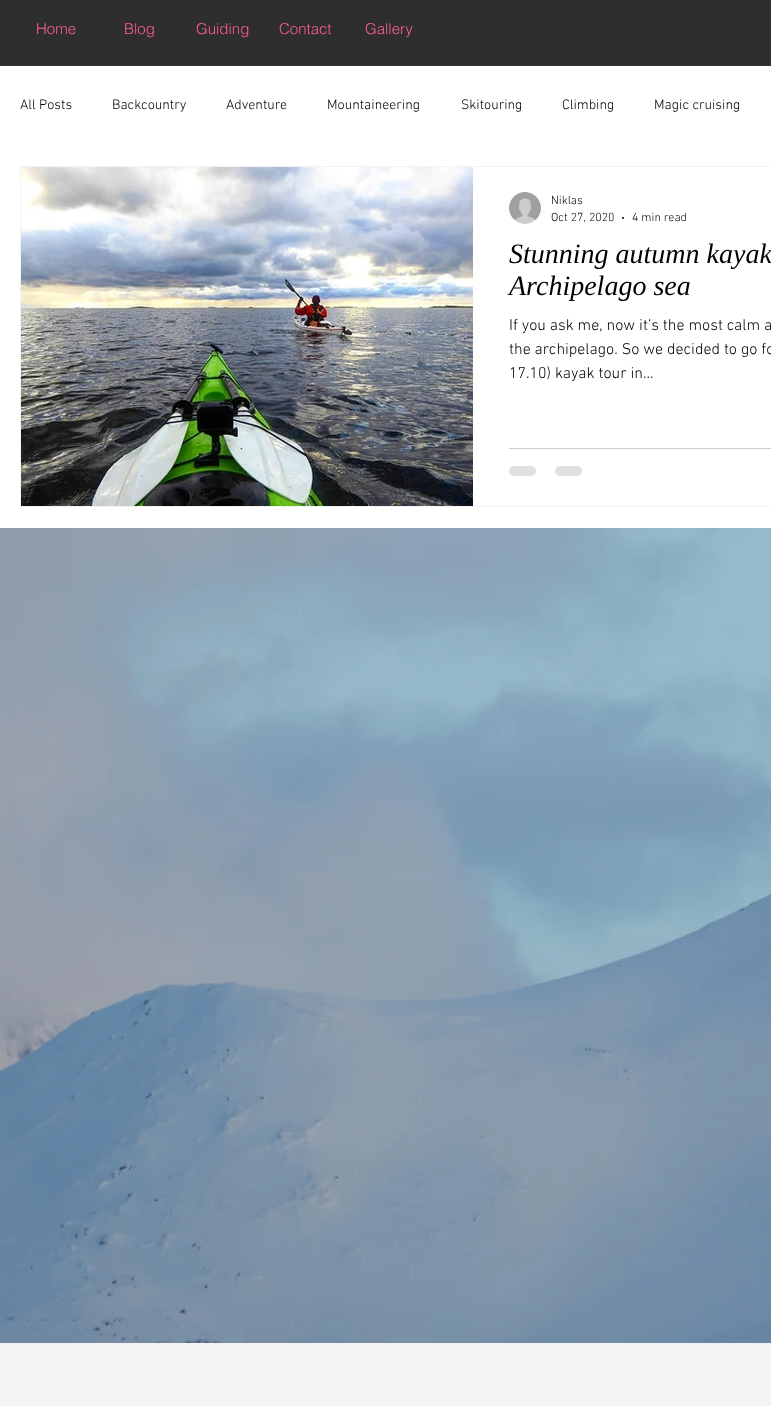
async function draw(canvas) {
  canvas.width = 771;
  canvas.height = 1406;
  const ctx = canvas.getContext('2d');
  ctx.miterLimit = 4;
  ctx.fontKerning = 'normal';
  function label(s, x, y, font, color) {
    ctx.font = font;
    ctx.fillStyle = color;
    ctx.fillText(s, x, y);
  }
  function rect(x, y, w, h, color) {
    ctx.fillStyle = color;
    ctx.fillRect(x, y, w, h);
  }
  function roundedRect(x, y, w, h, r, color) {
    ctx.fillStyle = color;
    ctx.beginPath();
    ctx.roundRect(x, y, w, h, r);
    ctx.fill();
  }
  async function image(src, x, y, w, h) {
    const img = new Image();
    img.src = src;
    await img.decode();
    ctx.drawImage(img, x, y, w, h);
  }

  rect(0, 0, 771, 1406, '#f3f3f3');
  rect(0, 0, 771, 66, '#2f2e2e');
  label('Home', 36, 34, '300 15px helvetica', '#ff5e8b');
  label('Blog', 124, 34, '300 15px helvetica', '#ff5e8b');
  label('Guiding', 196, 34, '300 15px helvetica', '#ff5e8b');
  label('Contact', 279, 34, '300 15px helvetica', '#ff5e8b');
  label('Gallery', 365, 34, '300 15px helvetica', '#ff5e8b');
  rect(0, 66, 771, 462, '#fff');
  label('All Posts', 20, 109, '300 14px "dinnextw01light"', '#000');
  label('Backcountry', 112, 109, '300 14px "dinnextw01light"', '#000');
  label('Adventure', 226, 109, '300 14px "dinnextw01light"', '#000');
  label('Mountaineering', 327, 109, '300 14px "dinnextw01light"', '#000');
  label('Skitouring', 461, 109, '300 14px "dinnextw01light"', '#000');
  label('Climbing', 562, 109, '300 14px "dinnextw01light"', '#000');
  label('Magic cruising', 654, 109, '300 14px "dinnextw01light"', '#000');
  ctx.strokeStyle = '#f3f3f3';
  ctx.strokeRect(20.5, 166.5, 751, 340);
  await image('assets/img1.png', 21, 167, 452, 339);
  await image('assets/img2.png', 509, 192, 32, 32);
  label('Niklas', 551, 204, '300 12px "dinnextw01light"', '#000');
  label('Oct 27, 2020', 551, 221, '300 12px "dinnextw01light"', '#000');
  ctx.beginPath();
  ctx.arc(623, 218, 1, 0, 2 * Math.PI);
  ctx.fill();
  label('4 min read', 632, 221, '300 12px "dinnextw01light"', '#000');
  label('Stunning autumn kayak', 509, 263, 'italic 28px Liberation Serif', '#000');
  label('Archipelago sea', 509, 295, 'italic 28px Liberation Serif', '#000');
  label('If you ask me, now it’s the most calm a', 509, 330, '300 16px "dinnextw01light"', '#000');
  label('the archipelago. So we decided to go fo', 509, 354, '300 16px "dinnextw01light"', '#000');
  label('17.10) kayak tour in...', 509, 378, '300 16px "dinnextw01light"', '#000');
  rect(509, 448, 262, 1, '#ccc');
  roundedRect(509, 466, 27, 10, 5, '#e0e0e0');
  roundedRect(555, 466, 27, 10, 5, '#e0e0e0');
  await image('assets/img3.png', 0, 528, 771, 815);
}

draw(document.querySelector('canvas'));
